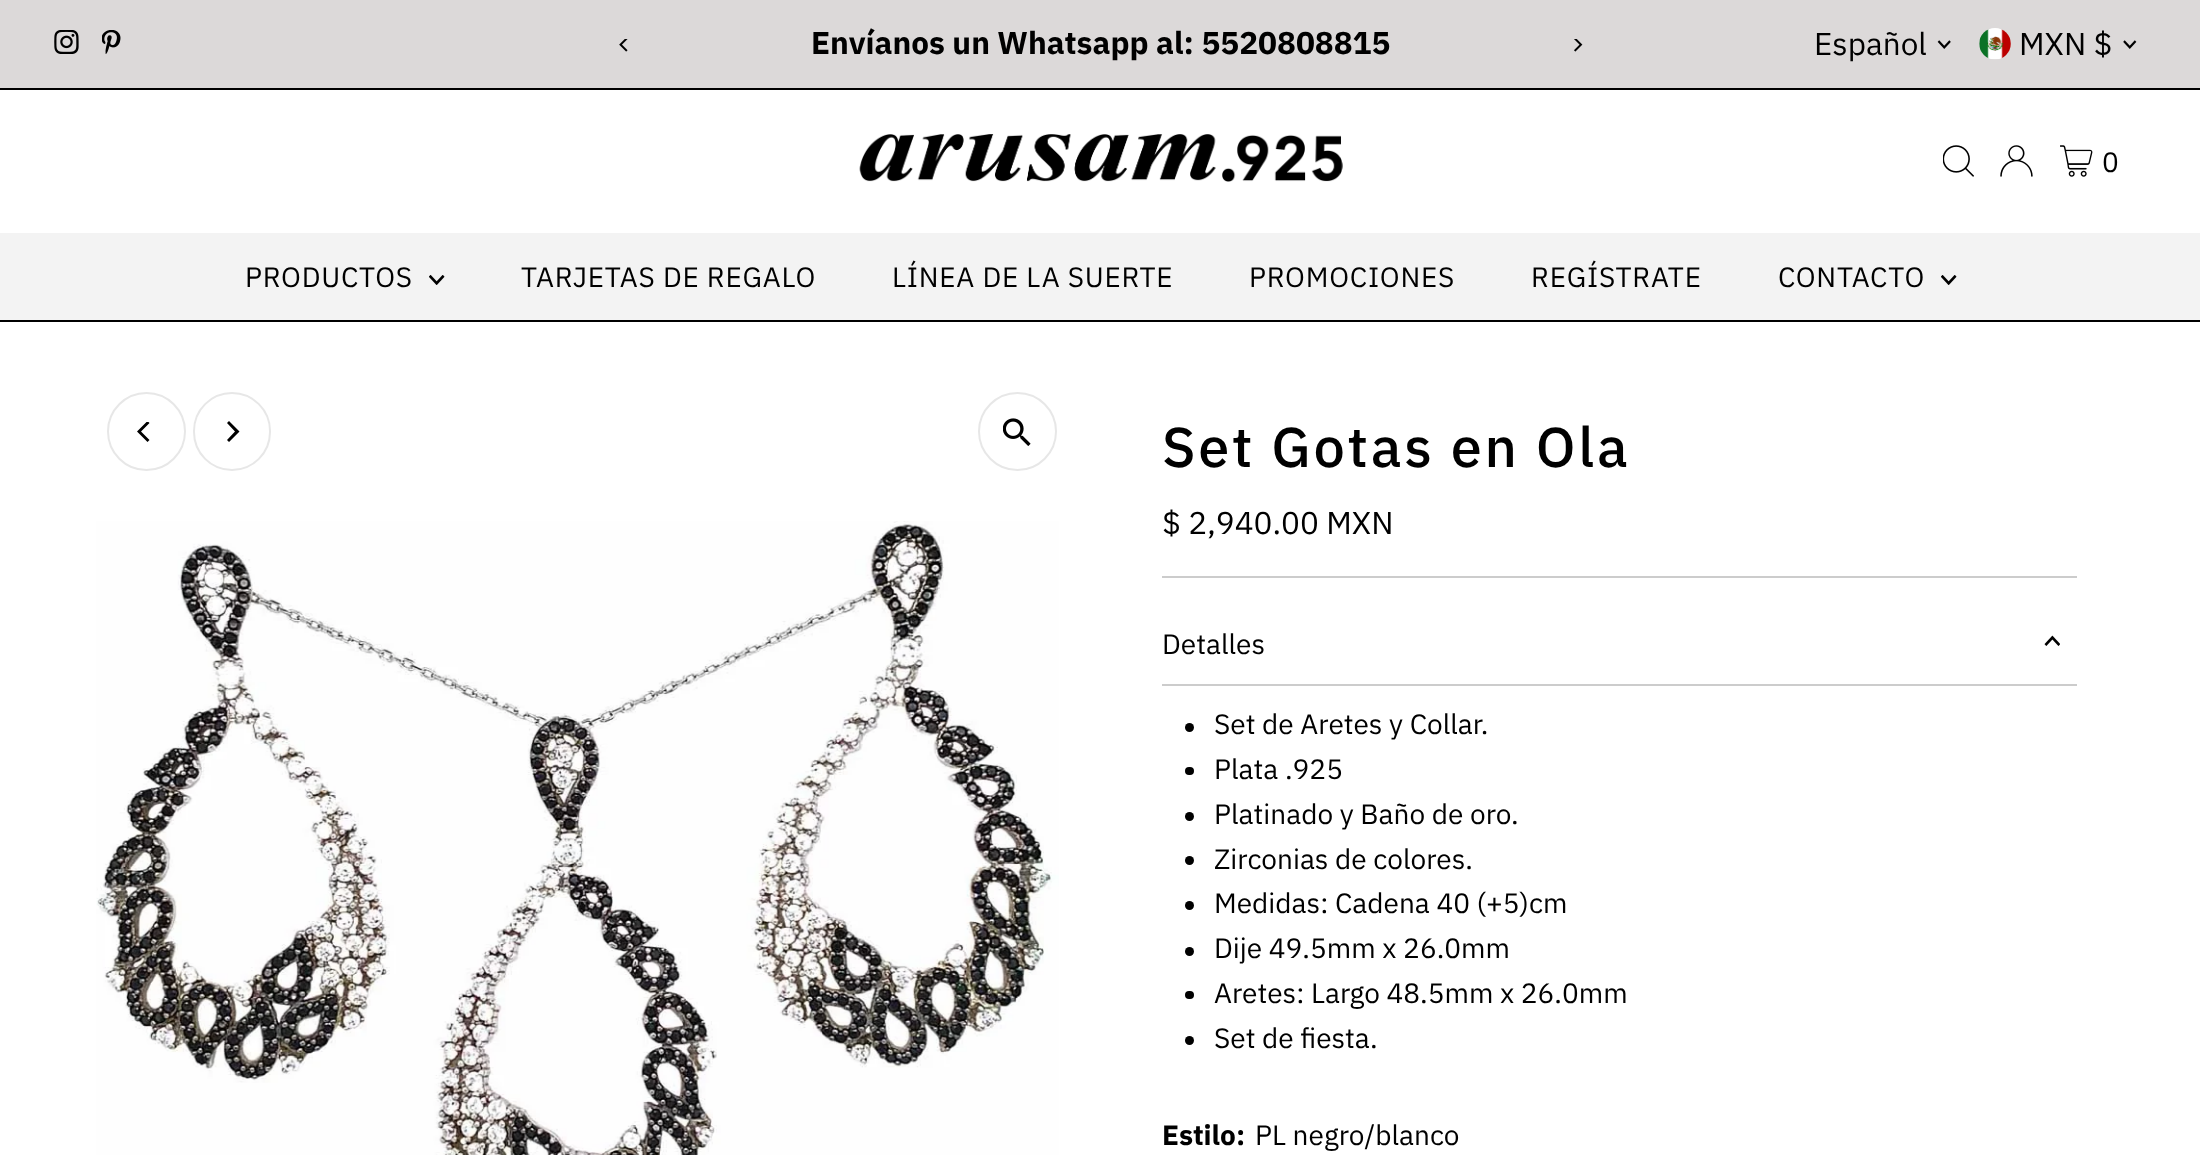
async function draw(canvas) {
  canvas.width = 2200;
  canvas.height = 1155;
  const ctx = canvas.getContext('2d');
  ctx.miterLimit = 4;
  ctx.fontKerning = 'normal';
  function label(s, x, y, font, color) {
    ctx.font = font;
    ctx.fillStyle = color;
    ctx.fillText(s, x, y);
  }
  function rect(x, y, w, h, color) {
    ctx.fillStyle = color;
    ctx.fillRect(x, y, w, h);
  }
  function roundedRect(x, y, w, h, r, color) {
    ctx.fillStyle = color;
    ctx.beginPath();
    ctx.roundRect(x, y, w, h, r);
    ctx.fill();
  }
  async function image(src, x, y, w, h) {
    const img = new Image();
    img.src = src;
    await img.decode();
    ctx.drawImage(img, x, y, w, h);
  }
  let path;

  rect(0, 0, 2200, 1155, '#fff');
  rect(0, 0, 2200, 88, '#dcd9d9');
  await image('assets/img1.png', 54, 30, 25, 24);
  await image('assets/img2.png', 102, 30, 19, 24);
  await image('assets/img3.png', 619, 39, 9, 13);
  label('Envíanos un Whatsapp al: 5520808815', 811, 54, 'bold 31.5px IBM Plex Sans', '#000');
  await image('assets/img4.png', 1574, 39, 9, 13);
  label('Español', 1814, 55, '31.5px IBM Plex Sans', '#000');
  await image('assets/img5.png', 1937, 40, 14, 9);
  await image('assets/img6.png', 1979, 28, 32, 32);
  label('MXN $', 2019, 55, '31.5px IBM Plex Sans', '#000');
  await image('assets/img7.png', 2123, 40, 14, 9);
  rect(0, 88, 2200, 2, '#000');
  rect(0, 320, 2200, 2, '#000');
  await image('assets/img8.png', 859, 134, 484, 48);
  await image('assets/img9.png', 1943, 145, 31, 32);
  await image('assets/img10.png', 2000, 145, 33, 32);
  await image('assets/img11.png', 2060, 145, 33, 32);
  label('0', 2102, 172, '28px IBM Plex Sans', '#000');
  rect(0, 233, 2200, 87, '#f3f3f3');
  ctx.letterSpacing = '0.75px';
  label('PRODUCTOS', 245, 287, '28px IBM Plex Sans', '#000');
  await image('assets/img12.png', 429, 275, 16, 10);
  label('TARJETAS DE REGALO', 521, 287, '28px IBM Plex Sans', '#000');
  label('LÍNEA DE LA SUERTE', 892, 287, '28px IBM Plex Sans', '#000');
  label('PROMOCIONES', 1249, 287, '28px IBM Plex Sans', '#000');
  label('REGÍSTRATE', 1531, 287, '28px IBM Plex Sans', '#000');
  label('CONTACTO', 1778, 287, '28px IBM Plex Sans', '#000');
  await image('assets/img12.png', 1941, 275, 16, 10);
  ctx.beginPath();
  ctx.arc(1017.5, 431.5, 38.5, 0, 2 * Math.PI);
  ctx.strokeStyle = '#e7e7e7';
  ctx.lineWidth = 2;
  ctx.stroke();
  await image('assets/img13.png', 1003, 418, 28, 28);
  await image('assets/img14.png', 96, 521, 963, 634);
  ctx.beginPath();
  ctx.arc(146.5, 431.5, 38.5, 0, 2 * Math.PI);
  ctx.stroke();
  ctx.save();
  ctx.beginPath();
  ctx.rect(135, 422, 21, 21);
  ctx.clip();
  path = new Path2D('M137 431.5L147.5 442L149.5 440L141 431.5L149.5 423L147.5 421Z');
  ctx.fill(path);
  ctx.restore();
  ctx.beginPath();
  ctx.roundRect(194, 393, 76, 77, 38);
  ctx.stroke();
  path = new Path2D('M239.5 431.5L229 421L227 423L235 431.5L227 440L229 442Z');
  ctx.fill(path);
  ctx.letterSpacing = '2.75px';
  label('Set Gotas en Ola', 1162, 467, '500 56px IBM Plex Sans', '#000');
  rect(1162, 576, 915, 2, '#ccc');
  ctx.letterSpacing = '0px';
  label('$ 2,940.00 MXN', 1162, 534, '31.5px IBM Plex Sans', '#000');
  rect(1162, 684, 915, 2, '#ccc');
  label('Detalles', 1162, 654, '28px IBM Plex Sans', '#000');
  await image('assets/img15.png', 2044, 635, 16, 11);
  ctx.beginPath();
  ctx.arc(1189.5, 727.5, 4.5, 0, 2 * Math.PI);
  ctx.fill();
  label('Set de Aretes y Collar.', 1214, 734, '28px IBM Plex Sans', '#000');
  roundedRect(1185, 767, 9, 8, 4, '#000');
  label('Plata .925', 1214, 779, '28px IBM Plex Sans', '#000');
  ctx.beginPath();
  ctx.arc(1189.5, 816.5, 4.5, 0, 2 * Math.PI);
  ctx.fill();
  label('Platinado y Baño de oro.', 1214, 824, '28px IBM Plex Sans', '#000');
  ctx.beginPath();
  ctx.arc(1189.5, 860.5, 4.5, 0, 2 * Math.PI);
  ctx.fill();
  label('Zirconias de colores.', 1214, 869, '28px IBM Plex Sans', '#000');
  ctx.beginPath();
  ctx.arc(1189.5, 905.5, 4.5, 0, 2 * Math.PI);
  ctx.fill();
  label('Medidas: Cadena 40 (+5)cm', 1214, 913, '28px IBM Plex Sans', '#000');
  ctx.beginPath();
  ctx.arc(1189.5, 951.5, 4.5, 0, 2 * Math.PI);
  ctx.fill();
  label('Dije 49.5mm x 26.0mm', 1214, 958, '28px IBM Plex Sans', '#000');
  roundedRect(1185, 991, 9, 8, 4, '#000');
  label('Aretes: Largo 48.5mm x 26.0mm', 1214, 1003, '28px IBM Plex Sans', '#000');
  ctx.beginPath();
  ctx.arc(1189.5, 1040.5, 4.5, 0, 2 * Math.PI);
  ctx.fill();
  label('Set de fiesta.', 1214, 1048, '28px IBM Plex Sans', '#000');
  label('Estilo:', 1162, 1145, 'bold 28px IBM Plex Sans', '#000');
  label('PL negro/blanco', 1255, 1145, '28px IBM Plex Sans', '#000');
}

draw(document.querySelector('canvas'));
